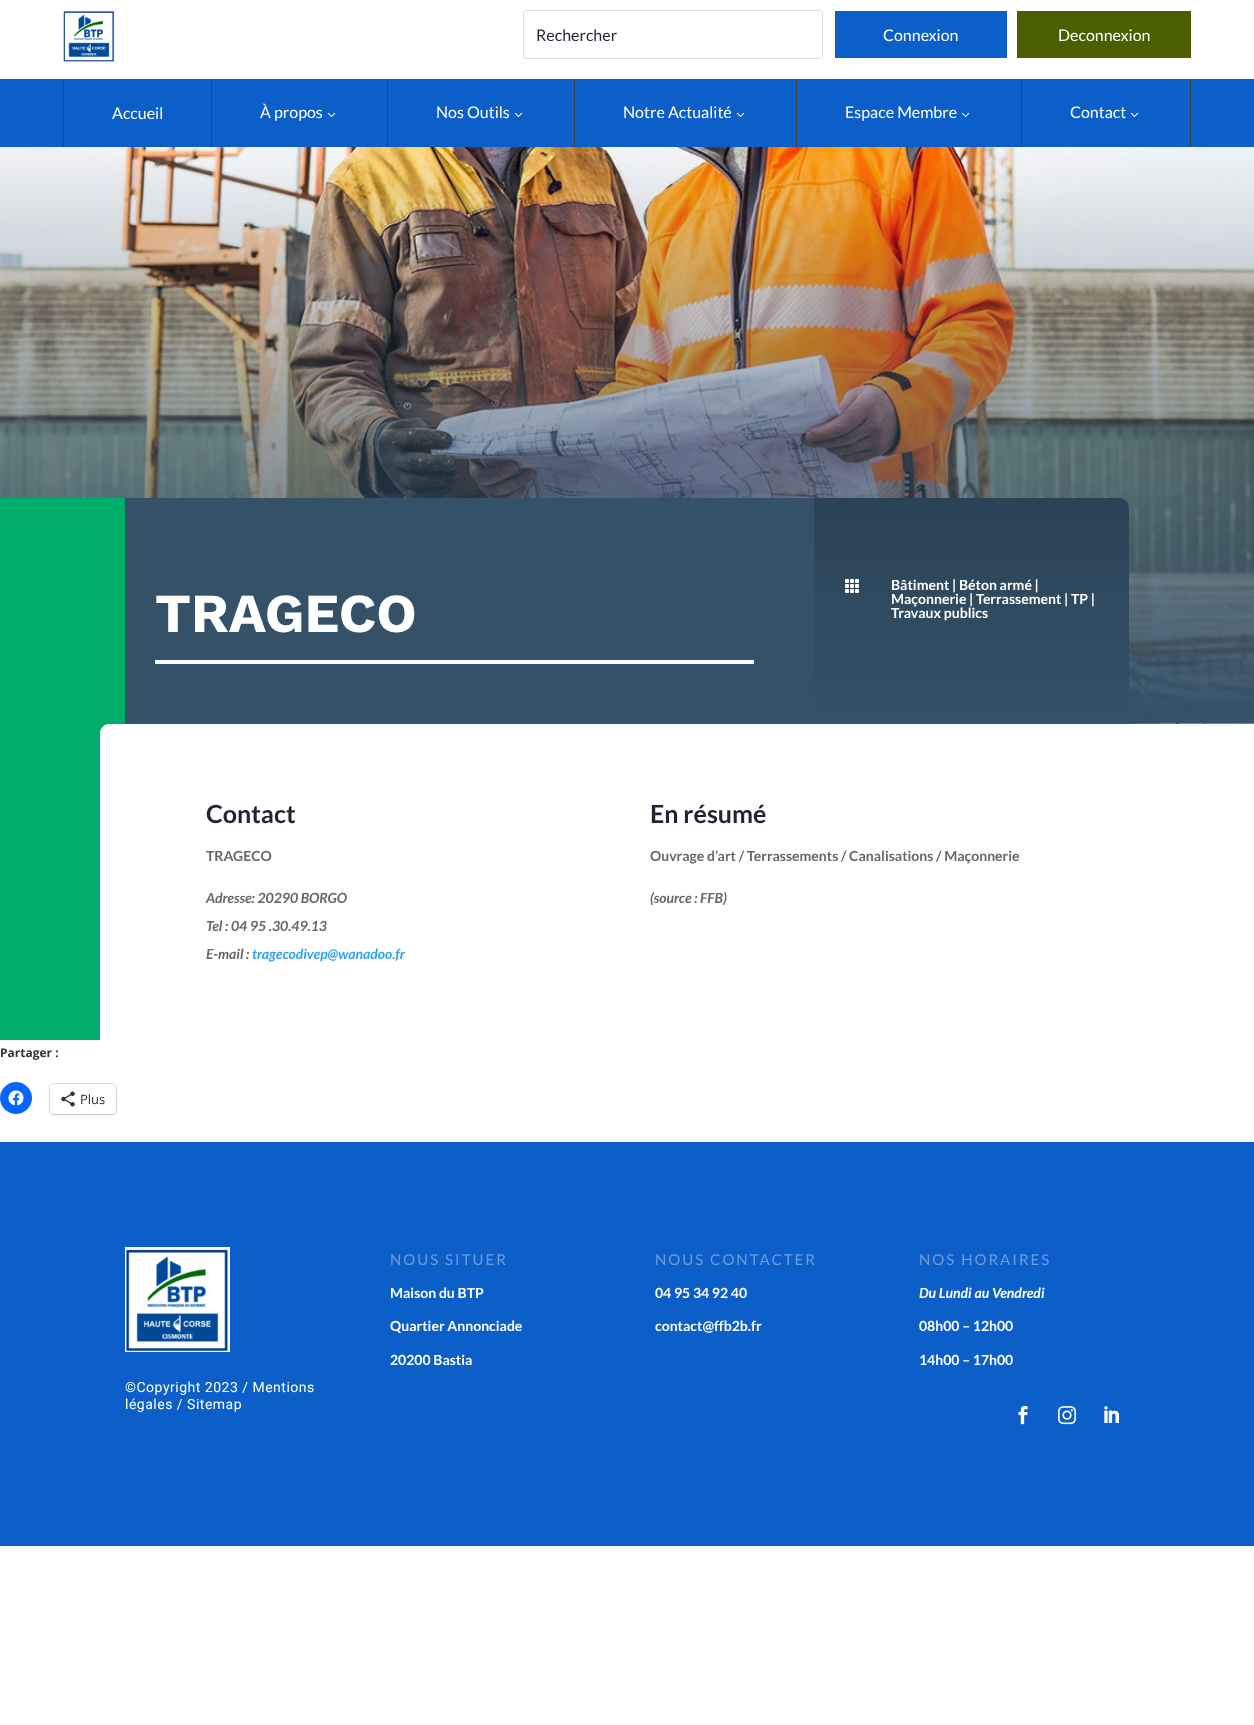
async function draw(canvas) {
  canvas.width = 1254;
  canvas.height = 1725;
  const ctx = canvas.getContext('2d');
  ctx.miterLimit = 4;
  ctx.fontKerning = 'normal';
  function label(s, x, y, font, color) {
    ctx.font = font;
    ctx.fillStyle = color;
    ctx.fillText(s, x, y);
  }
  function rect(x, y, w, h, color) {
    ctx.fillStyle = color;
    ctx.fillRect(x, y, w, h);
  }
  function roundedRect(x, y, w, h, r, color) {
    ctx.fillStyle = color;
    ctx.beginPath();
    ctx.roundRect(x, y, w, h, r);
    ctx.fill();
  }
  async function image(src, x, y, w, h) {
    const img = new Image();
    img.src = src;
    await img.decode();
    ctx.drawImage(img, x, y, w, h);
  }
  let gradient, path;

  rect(0, 0, 1254, 1725, '#fff');
  await image('assets/img1.png', 63, 11, 52, 51);
  ctx.beginPath();
  ctx.roundRect(523.5, 10.5, 299, 48, 2.5);
  ctx.strokeStyle = '#ddd';
  ctx.stroke();
  roundedRect(524, 11, 298, 47, 2, '#fff');
  label('Rechercher', 536, 41, '16px Lato', '#1f2532');
  rect(835, 11, 172, 47, '#0c5ec9');
  label('Connexion', 883, 41, '16px Lato', '#fff');
  rect(1017, 11, 174, 47, '#4b5e00');
  label('Deconnexion', 1058, 41, '16px Lato', '#fff');
  rect(0, 79, 1254, 68, '#0c5ec9');
  rect(63, 79, 1, 68, '#3e3e3e');
  label('Accueil', 112, 119, '16px Lato', '#fff');
  rect(211, 79, 1, 68, '#3e3e3e');
  label('À propos', 260, 118, '16px Lato', '#fff');
  await image('assets/img2.png', 327, 112, 9, 5);
  rect(387, 79, 1, 68, '#3e3e3e');
  label('Nos Outils', 436, 118, '16px Lato', '#fff');
  await image('assets/img2.png', 514, 112, 9, 5);
  rect(574, 79, 1, 68, '#3e3e3e');
  label('Notre Actualité', 623, 118, '16px Lato', '#fff');
  await image('assets/img2.png', 736, 112, 9, 5);
  rect(796, 79, 1, 68, '#3e3e3e');
  label('Espace Membre', 845, 118, '16px Lato', '#fff');
  await image('assets/img2.png', 961, 112, 9, 5);
  rect(1190, 79, 1, 68, '#3e3e3e');
  rect(1021, 79, 1, 68, '#3e3e3e');
  label('Contact', 1070, 118, '16px Lato', '#fff');
  await image('assets/img2.png', 1130, 112, 9, 5);
  await image('assets/img3.png', 0, 147, 1254, 577);
  rect(0, 498, 125, 226, '#00ac69');
  ctx.fillStyle = '#345168';
  ctx.beginPath();
  ctx.roundRect(125, 498, 1004, 226, [0, 10, 0, 0]);
  ctx.fill();
  rect(155, 660, 599, 4, '#fff');
  label('TRAGECO', 155, 632, 'bold 55px Work Sans', '#fff');
  gradient = ctx.createLinearGradient(972, 498, 972, 724);
  gradient.addColorStop(0, '#0000002e');
  gradient.addColorStop(1, '#00000000');
  ctx.fillStyle = gradient;
  ctx.beginPath();
  ctx.roundRect(814, 498, 315, 226, [0, 10, 0, 0]);
  ctx.fill();
  await image('assets/img4.png', 845, 579, 14, 14);
  label('Bâtiment | Béton armé |', 891, 590, 'bold 14px Lato', '#fff');
  label('Maçonnerie | Terrassement | TP |', 891, 604, 'bold 14px Lato', '#fff');
  label('Travaux publics', 891, 618, 'bold 14px Lato', '#fff');
  ctx.fillStyle = '#00ac69';
  path = new Path2D('M-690 724C-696 724-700 728-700 734V1040H100V734C100 728 104 724 110 724Z');
  ctx.fill(path);
  ctx.fillStyle = '#fff';
  ctx.beginPath();
  ctx.roundRect(100, 724, 1154, 316, [10, 0, 0, 0]);
  ctx.fill();
  label('Contact', 206, 823, 'bold 25px Lato', '#1f2532');
  label('TRAGECO', 206, 861, 'bold 14px Lato', '#666');
  label('Adresse: 20290 BORGO', 206, 903, 'italic bold 14px Lato', '#666');
  label('Tel : 04 95 .30.49.13', 206, 931, 'italic bold 14px Lato', '#666');
  label('E-mail :', 206, 959, 'italic bold 14px Lato', '#666');
  label('tragecodivep@wanadoo.fr', 252, 959, 'italic bold 14px Lato', '#2ea3f2');
  label('En résumé', 650, 823, 'bold 25px Lato', '#1f2532');
  label('Ouvrage d’art / Terrassements / Canalisations / Maçonnerie', 650, 861, 'bold 14px Lato', '#666');
  label('(source : FFB)', 650, 903, 'italic bold 14px Lato', '#666');
  label('Partager :', 0, 1057, 'bold 12px Open Sans', '#333');
  ctx.fillStyle = '#0866ff';
  ctx.beginPath();
  ctx.arc(16, 1098, 16, 0, 2 * Math.PI);
  ctx.fill();
  await image('assets/img5.png', 8, 1090, 16, 16);
  ctx.beginPath();
  ctx.roundRect(49.5, 1083.5, 67, 31, 4.5);
  ctx.strokeStyle = '#e0e0e0';
  ctx.stroke();
  ctx.fillStyle = '#0000001f';
  ctx.filter = 'blur(1px)';
  ctx.beginPath();
  ctx.roundRect(50, 1085, 66, 30, 4);
  ctx.fill();
  ctx.filter = 'none';
  roundedRect(50, 1084, 66, 30, 4, '#fff');
  await image('assets/img6.png', 61, 1091, 14, 16);
  label('Plus', 80, 1104, '13px Open Sans', '#2c3338');
  rect(0, 1142, 1254, 404, '#0c5ec9');
  ctx.letterSpacing = '2px';
  label('NOUS SITUER', 390, 1265, '15px Lato', '#6d9edf');
  ctx.letterSpacing = '0px';
  label('Maison du BTP', 390, 1298, 'bold 14px Lato', '#fff');
  label('Quartier Annonciade', 390, 1331, 'bold 14px Lato', '#fff');
  label('20200 Bastia', 390, 1365, 'bold 14px Lato', '#fff');
  ctx.letterSpacing = '2px';
  label('NOUS CONTACTER', 655, 1265, '15px Lato', '#6d9edf');
  ctx.letterSpacing = '0px';
  label('04 95 34 92 40', 655, 1298, 'bold 14px Lato', '#fff');
  label('contact@ffb2b.fr', 655, 1331, 'bold 14px Lato', '#fff');
  ctx.letterSpacing = '2px';
  label('NOS HORAIRES', 919, 1265, '15px Lato', '#6d9edf');
  ctx.letterSpacing = '0px';
  label('Du Lundi au Vendredi', 919, 1298, 'italic bold 14px Lato', '#fff');
  label('08h00 – 12h00', 919, 1331, 'bold 14px Lato', '#fff');
  label('14h00 – 17h00', 919, 1365, 'bold 14px Lato', '#fff');
  await image('assets/img7.png', 1018, 1406, 10, 19);
  await image('assets/img8.png', 1058, 1406, 18, 19);
  await image('assets/img9.png', 1104, 1406, 16, 17);
  await image('assets/img10.png', 125, 1247, 105, 105);
  ctx.letterSpacing = '0.5px';
  label('©Copyright 2023 / Mentions', 125, 1392, '14px Roboto', '#fff');
  label('légales / Sitemap', 125, 1409, '14px Roboto', '#fff');
}

draw(document.querySelector('canvas'));
